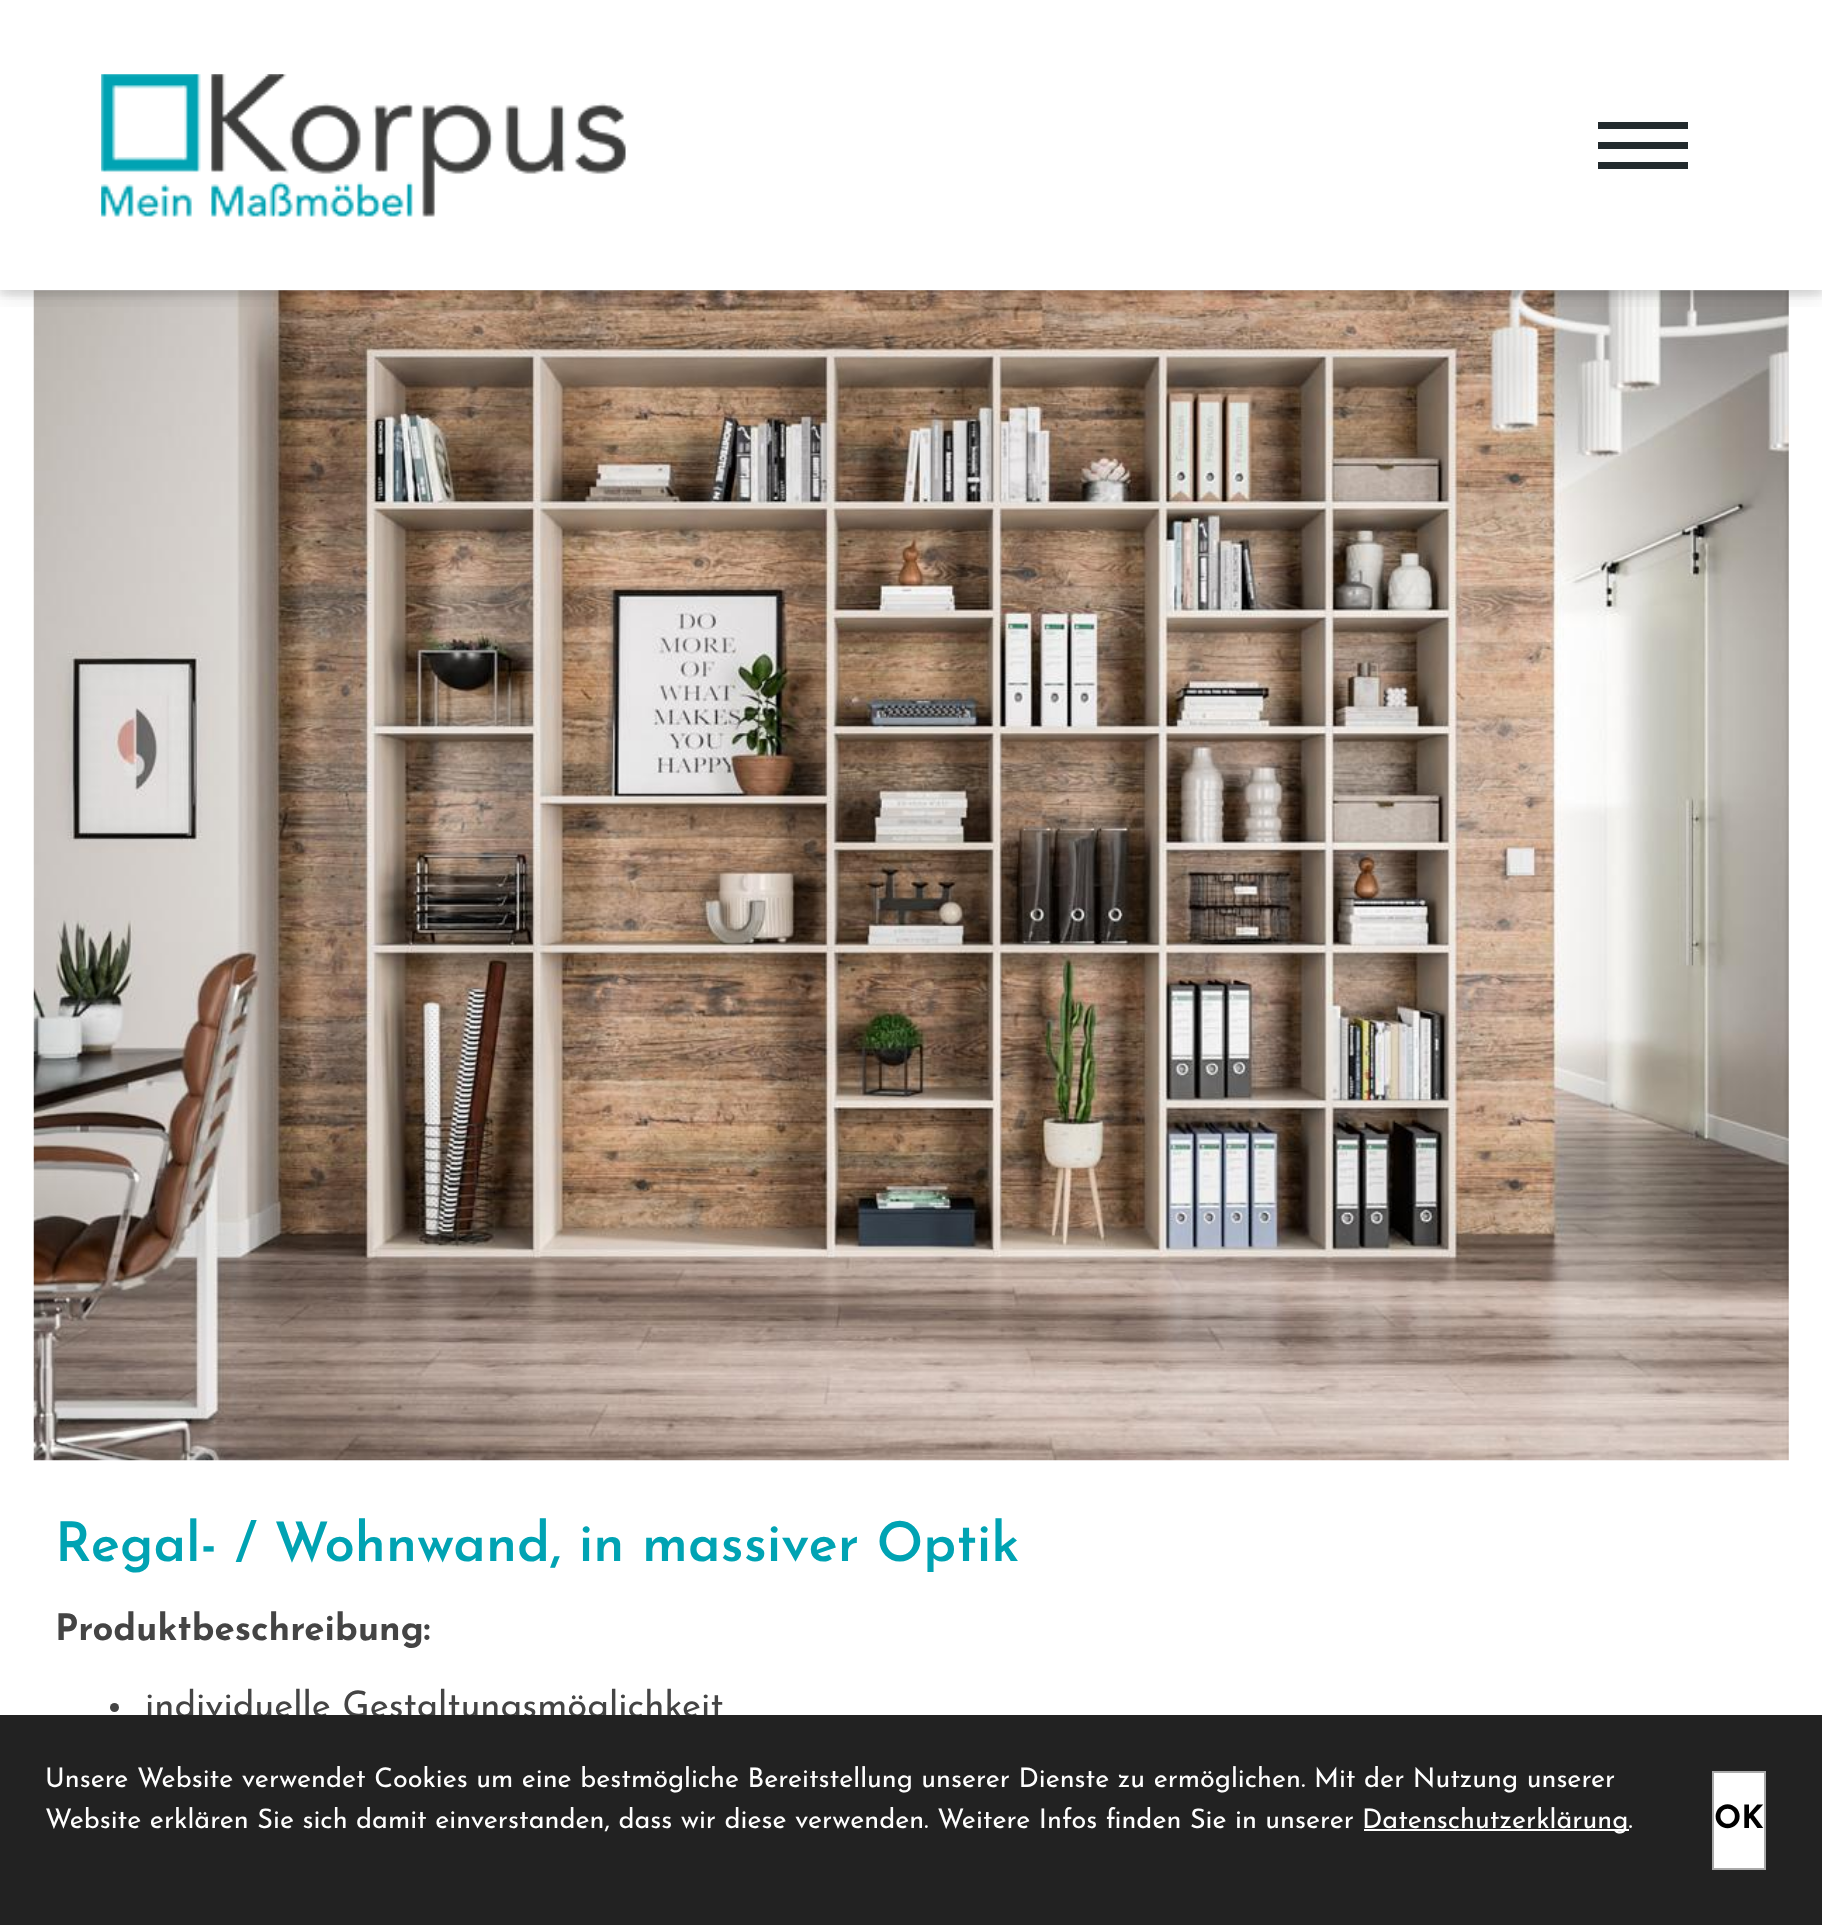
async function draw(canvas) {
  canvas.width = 1822;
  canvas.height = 1925;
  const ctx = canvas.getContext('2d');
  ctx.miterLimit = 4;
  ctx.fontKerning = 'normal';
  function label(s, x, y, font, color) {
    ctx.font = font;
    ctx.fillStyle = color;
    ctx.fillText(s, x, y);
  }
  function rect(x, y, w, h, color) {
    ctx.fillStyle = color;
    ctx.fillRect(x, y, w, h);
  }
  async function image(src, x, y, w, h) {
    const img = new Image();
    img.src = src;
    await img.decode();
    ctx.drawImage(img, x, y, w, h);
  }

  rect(0, 0, 1822, 1925, '#fff');
  await image('assets/img2.png', 33, 290, 1756, 1171);
  ctx.save();
  ctx.beginPath();
  ctx.rect(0, 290, 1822, 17);
  ctx.clip();
  ctx.fillStyle = '#0000000f';
  ctx.filter = 'blur(12px)';
  ctx.beginPath();
  ctx.rect(0, 11, 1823, 291);
  ctx.fill();
  ctx.filter = 'none';
  ctx.restore();
  ctx.save();
  ctx.beginPath();
  ctx.rect(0, 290, 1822, 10);
  ctx.clip();
  ctx.fillStyle = '#0000000f';
  ctx.filter = 'blur(7px)';
  ctx.beginPath();
  ctx.rect(0, 7, 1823, 290);
  ctx.fill();
  ctx.filter = 'none';
  ctx.restore();
  ctx.save();
  ctx.beginPath();
  ctx.rect(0, 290, 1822, 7);
  ctx.clip();
  ctx.fillStyle = '#00000012';
  ctx.filter = 'blur(3.5px)';
  ctx.beginPath();
  ctx.rect(0, 5, 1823, 290);
  ctx.fill();
  ctx.filter = 'none';
  ctx.restore();
  await image('assets/img1.png', 101, 74, 525, 143);
  rect(1598, 142, 90, 7, '#222a2d');
  rect(1598, 122, 90, 7, '#222a2d');
  rect(1598, 162, 90, 7, '#222a2d');
  label('Regal- / Wohnwand, in massiver Optik', 55, 1561, '100 54.7px Josefin Sans', '#00a3b3');
  label('Produktbeschreibung:', 55, 1640, '100 36.5px "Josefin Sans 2"', '#444');
  ctx.beginPath();
  ctx.arc(114.5, 1707.5, 4.5, 0, 2 * Math.PI);
  ctx.fill();
  label('individuelle Gestaltungsmöglichkeit', 145, 1717, '100 36.5px "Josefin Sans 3"', '#444');
  rect(0, 1715, 1822, 210, '#222');
  label('Unsere Website verwendet Cookies um eine bestmögliche Bereitstellung unserer Dienste zu ermöglichen. Mit der Nutzung unserer', 45, 1787, '100 27px "Josefin Sans 3"', '#fff');
  label('Website erklären Sie sich damit einverstanden, dass wir diese verwenden. Weitere Infos finden Sie in unserer', 45, 1828, '100 27px "Josefin Sans 3"', '#fff');
  rect(1364, 1829, 265, 2, '#fff');
  label('Datenschutzerklärung.', 1362, 1828, '100 27px "Josefin Sans 3"', '#fff');
  ctx.beginPath();
  ctx.rect(1713, 1772, 52, 97);
  ctx.fill();
  ctx.strokeStyle = '#aaa';
  ctx.lineWidth = 2;
  ctx.stroke();
  label('OK', 1714, 1828, '100 32px "Josefin Sans 2"', '#000');
}

draw(document.querySelector('canvas'));
